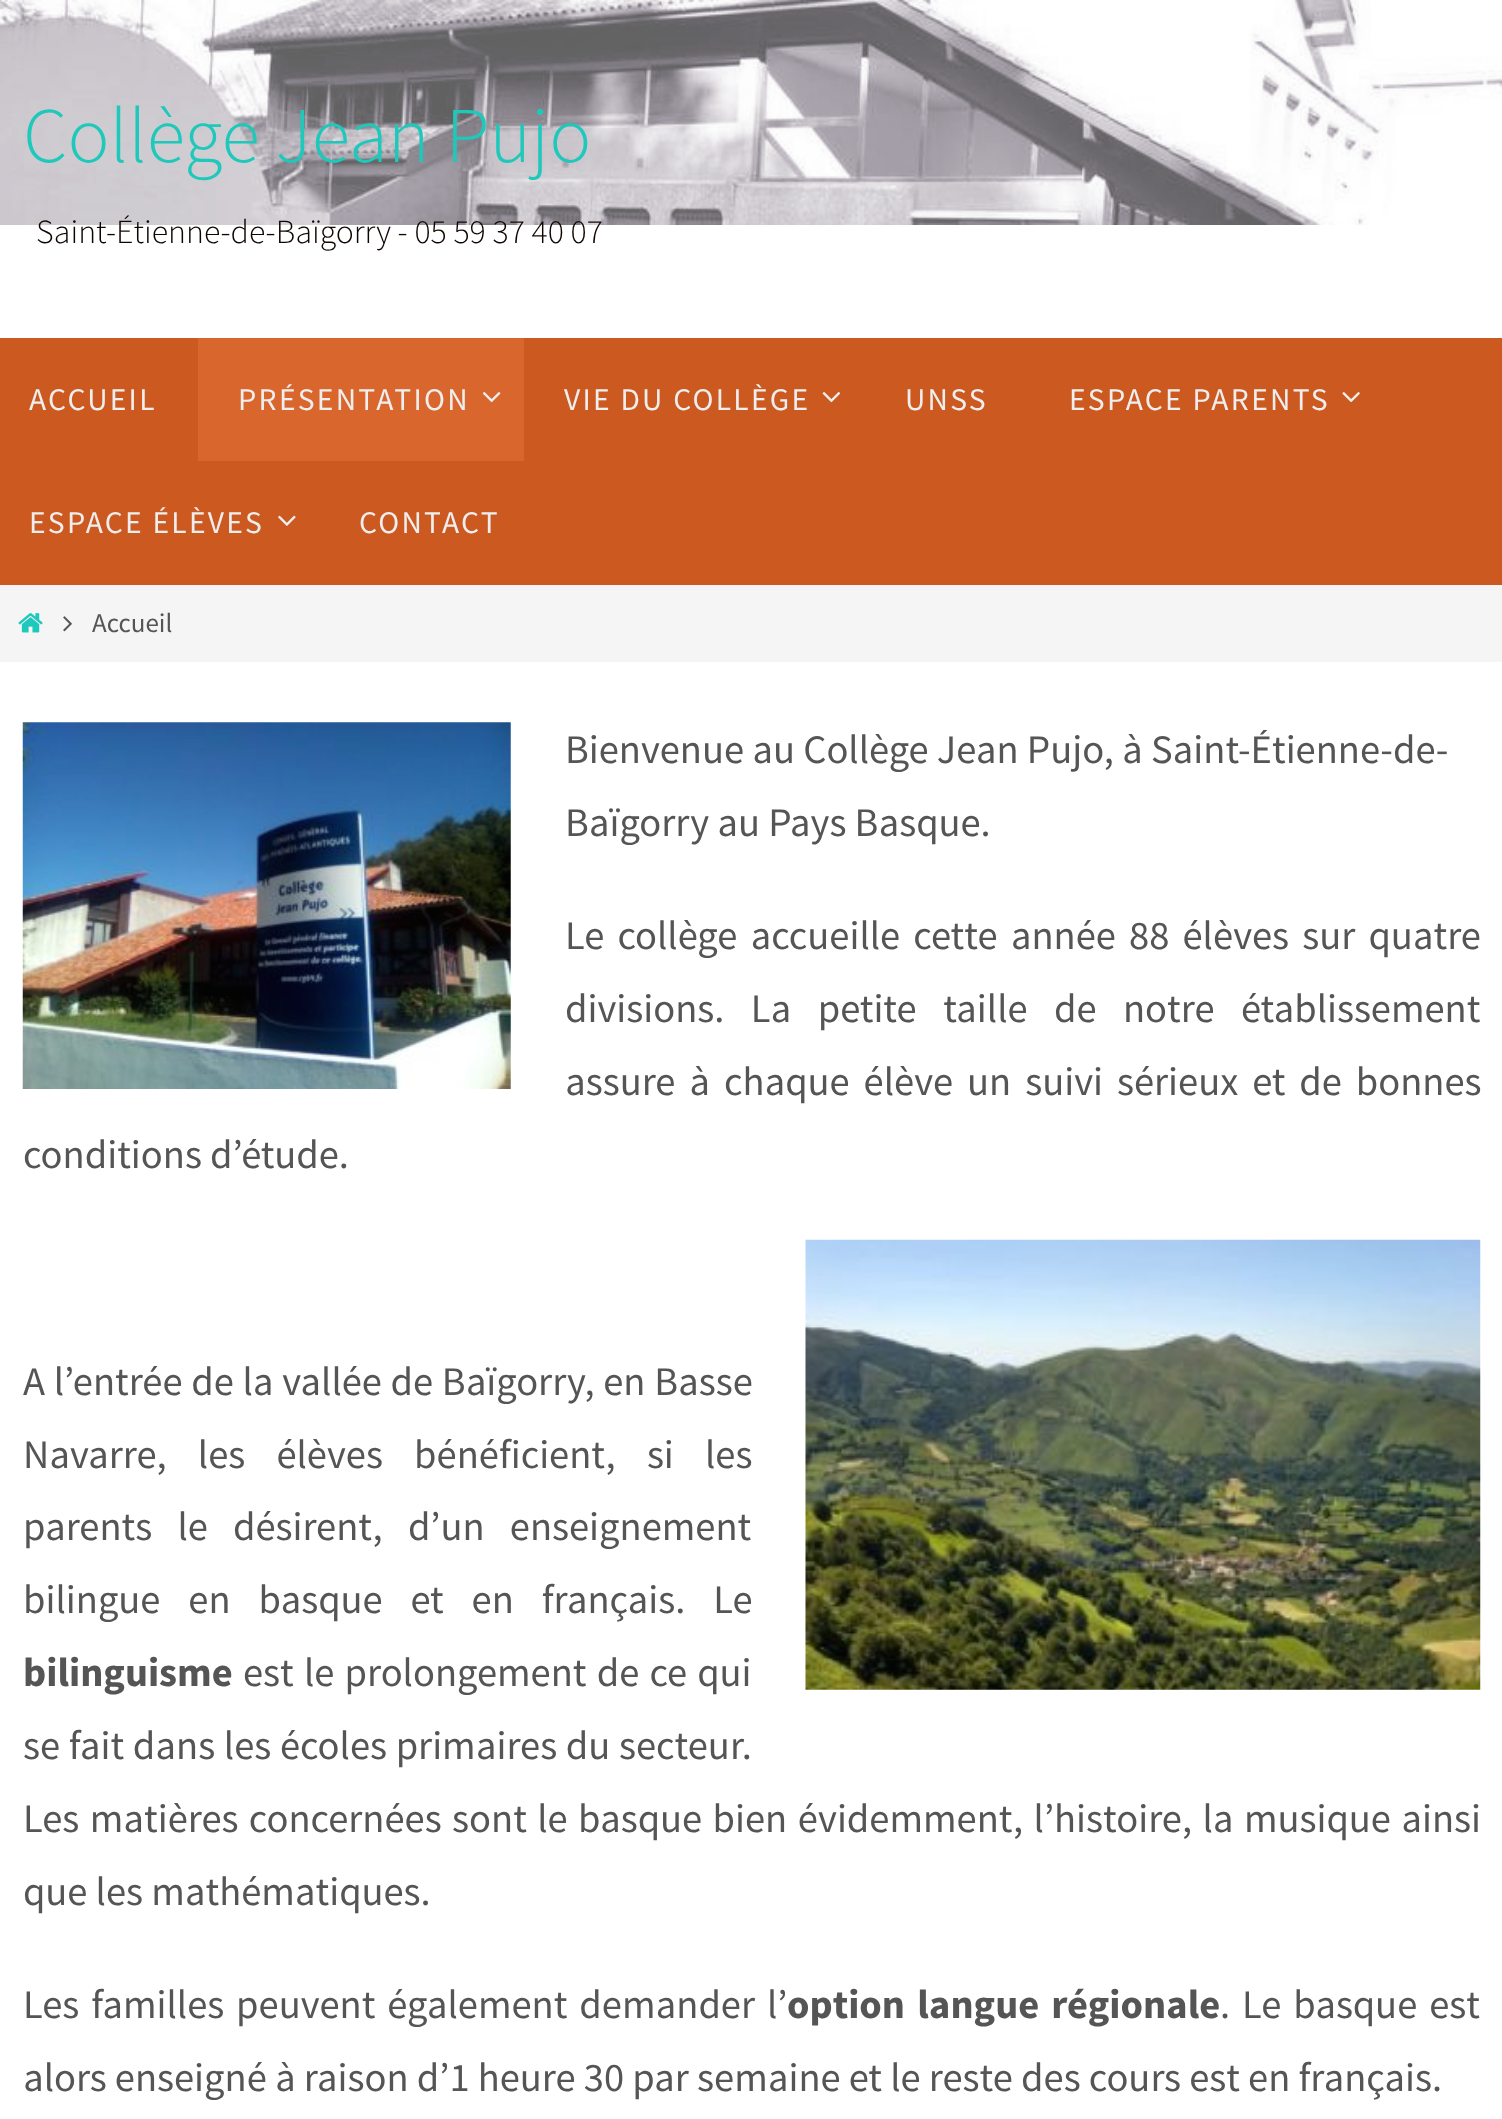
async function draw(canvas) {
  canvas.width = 1502;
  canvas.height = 2119;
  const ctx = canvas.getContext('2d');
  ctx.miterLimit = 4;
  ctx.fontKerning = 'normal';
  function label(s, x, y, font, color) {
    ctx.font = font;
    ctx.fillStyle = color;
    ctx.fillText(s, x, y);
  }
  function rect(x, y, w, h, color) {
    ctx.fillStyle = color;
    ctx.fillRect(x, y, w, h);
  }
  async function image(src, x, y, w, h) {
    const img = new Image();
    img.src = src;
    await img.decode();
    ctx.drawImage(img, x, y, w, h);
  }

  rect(0, 0, 1502, 2119, '#fff');
  await image('assets/img1.png', 0, 0, 1502, 225);
  label('Collège Jean Pujo', 23, 162, '300 78.75px Source Sans Pro', '#1ec8bb');
  label('Saint-Étienne-de-Baïgorry - 05 59 37 40 07', 36, 243, '300 33.75px Source Sans Pro', '#0f0500');
  rect(0, 338, 1502, 247, '#cb5920');
  ctx.letterSpacing = '2.25px';
  label('ACCUEIL', 29, 410, '31.5px Source Sans Pro', '#eee');
  rect(198, 338, 326, 123, '#d8662d');
  label('PRÉSENTATION', 238, 410, '31.5px Source Sans Pro', '#eee');
  await image('assets/img2.png', 482, 392, 19, 11);
  label('VIE DU COLLÈGE', 564, 410, '31.5px Source Sans Pro', '#eee');
  await image('assets/img3.png', 822, 392, 19, 11);
  label('UNSS', 905, 410, '31.5px Source Sans Pro', '#eee');
  label('ESPACE PARENTS', 1069, 410, '31.5px Source Sans Pro', '#eee');
  await image('assets/img4.png', 1342, 392, 18, 11);
  label('ESPACE ÉLÈVES', 29, 533, '31.5px Source Sans Pro', '#eee');
  await image('assets/img5.png', 278, 515, 18, 11);
  label('CONTACT', 359, 533, '31.5px Source Sans Pro', '#eee');
  rect(0, 585, 1502, 77, '#f5f5f5');
  await image('assets/img6.png', 18, 613, 25, 20);
  await image('assets/img7.png', 63, 616, 9, 16);
  ctx.letterSpacing = '0px';
  label('Accueil', 92, 632, '27px Source Sans Pro', '#555');
  await image('assets/img8.png', 22, 722, 489, 367);
  label('Bienvenue au Collège Jean Pujo, à Saint-Étienne-de-', 565, 763, '40.5px Source Sans Pro', '#555');
  label('Baïgorry au Pays Basque.', 565, 836, '40.5px Source Sans Pro', '#555');
  ctx.wordSpacing = '5px';
  label('Le collège accueille cette année 88 élèves sur quatre', 565, 949, '40.5px Source Sans Pro', '#555');
  ctx.wordSpacing = '18.25px';
  label('divisions. La petite taille de notre établissement', 565, 1022, '40.5px Source Sans Pro', '#555');
  ctx.wordSpacing = '5.75px';
  label('assure à chaque élève un suivi sérieux et de bonnes', 565, 1095, '40.5px Source Sans Pro', '#555');
  ctx.wordSpacing = '0px';
  label('conditions d’étude.', 23, 1168, '40.5px Source Sans Pro', '#555');
  await image('assets/img9.png', 805, 1239, 676, 451);
  ctx.wordSpacing = '0.5px';
  label('A l’entrée de la vallée de Baïgorry, en Basse', 23, 1395, '40.5px Source Sans Pro', '#555');
  ctx.wordSpacing = '23px';
  label('Navarre, les élèves bénéficient, si les', 23, 1468, '40.5px Source Sans Pro', '#555');
  ctx.wordSpacing = '17px';
  label('parents le désirent, d’un enseignement', 23, 1540, '40.5px Source Sans Pro', '#555');
  ctx.wordSpacing = '19.75px';
  label('bilingue en basque et en français. Le', 23, 1613, '40.5px Source Sans Pro', '#555');
  ctx.wordSpacing = '0px';
  label('bilinguisme', 23, 1686, 'bold 40.5px Source Sans Pro', '#555');
  ctx.wordSpacing = '2px';
  label('est le prolongement de ce qui', 243, 1686, '40.5px Source Sans Pro', '#555');
  ctx.wordSpacing = '0.5px';
  label('se fait dans les écoles primaires du secteur.', 23, 1759, '40.5px Source Sans Pro', '#555');
  ctx.wordSpacing = '2.25px';
  label('Les matières concernées sont le basque bien évidemment, l’histoire, la musique ainsi', 23, 1832, '40.5px Source Sans Pro', '#555');
  ctx.wordSpacing = '0px';
  label('que les mathématiques.', 23, 1905, '40.5px Source Sans Pro', '#555');
  ctx.wordSpacing = '3.75px';
  label('Les familles peuvent également demander l’', 23, 2018, '40.5px Source Sans Pro', '#555');
  label('option langue régionale', 787, 2018, 'bold 40.5px Source Sans Pro', '#555');
  label('. Le basque est', 1220, 2018, '40.5px Source Sans Pro', '#555');
  ctx.wordSpacing = '0px';
  label('alors enseigné à raison d’1 heure 30 par semaine et le reste des cours est en français.', 23, 2091, '40.5px Source Sans Pro', '#555');
}

draw(document.querySelector('canvas'));
